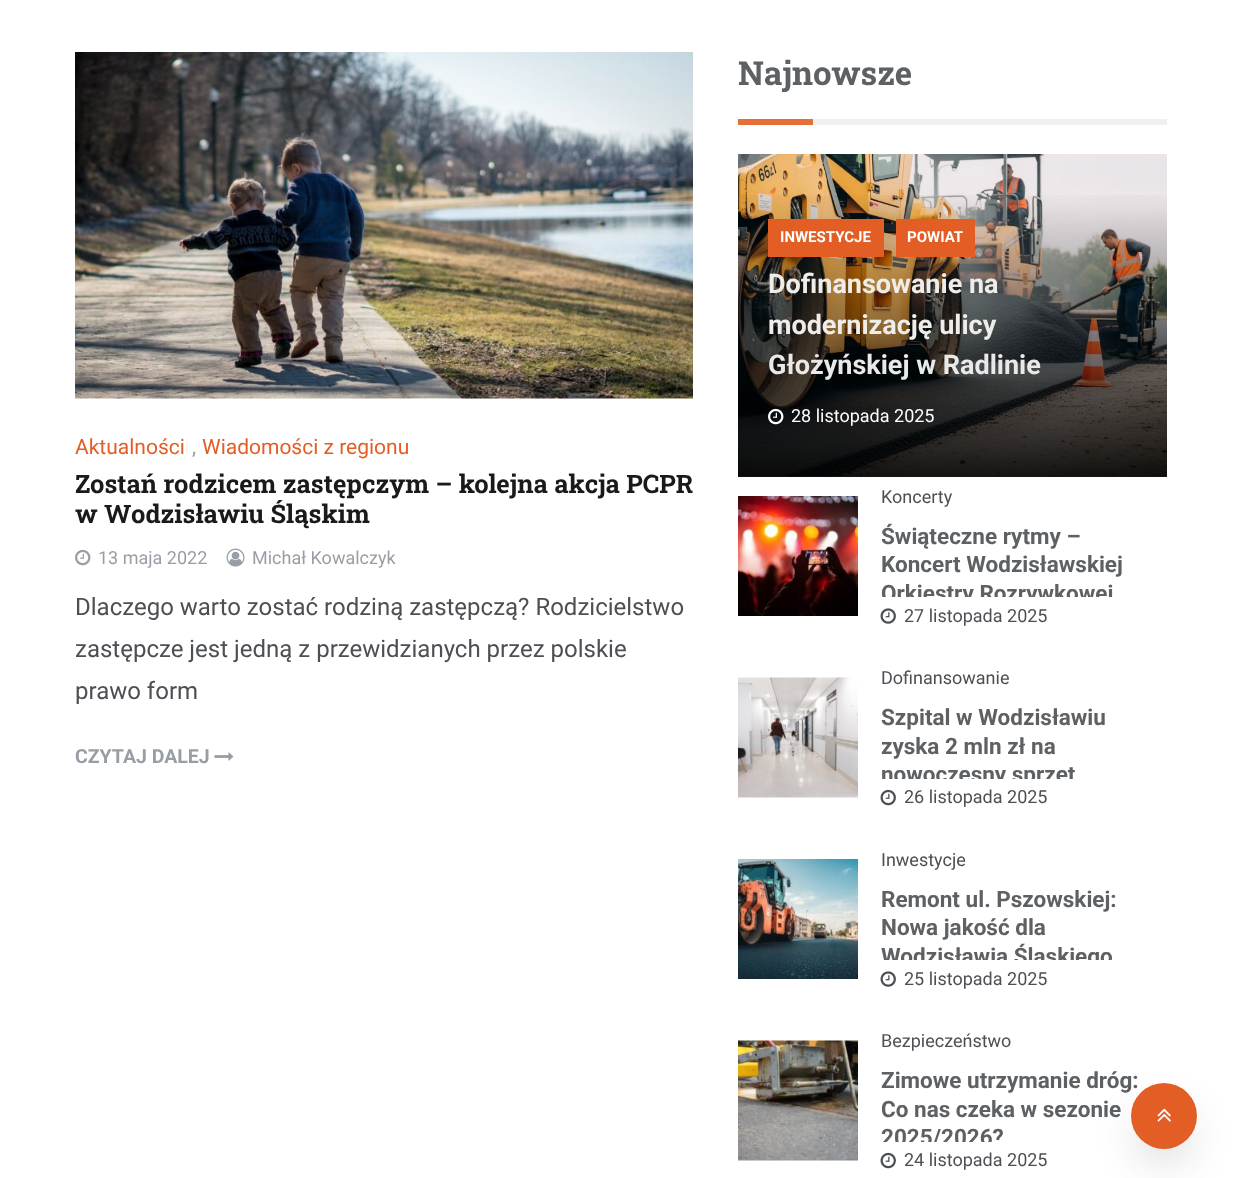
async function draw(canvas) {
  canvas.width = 1241;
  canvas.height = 1178;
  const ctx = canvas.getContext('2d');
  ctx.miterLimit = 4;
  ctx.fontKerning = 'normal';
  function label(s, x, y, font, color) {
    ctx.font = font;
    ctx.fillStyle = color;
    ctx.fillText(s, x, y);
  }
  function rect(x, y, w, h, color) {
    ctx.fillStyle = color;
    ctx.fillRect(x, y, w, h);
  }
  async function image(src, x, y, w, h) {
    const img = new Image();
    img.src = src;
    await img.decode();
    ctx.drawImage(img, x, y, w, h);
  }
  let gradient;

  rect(0, 0, 1241, 1178, '#fff');
  await image('assets/img1.png', 75, 52, 618, 347);
  label('Aktualności', 75, 454, '21px Roboto', '#e35e24');
  label(',', 192, 454, '21px Roboto', '#989ea6');
  label('Wiadomości z regionu', 202, 454, '21px Roboto', '#e35e24');
  label('Zostań rodzicem zastępczym – kolejna akcja PCPR', 75, 493, 'bold 25.5px Roboto Slab', '#1a1a1a');
  label('w Wodzisławiu Śląskim', 75, 523, 'bold 25.5px Roboto Slab', '#1a1a1a');
  await image('assets/img2.png', 75, 549, 16, 17);
  label('13 maja 2022', 98, 564, '18px Roboto', '#989ea6');
  await image('assets/img3.png', 226, 548, 19, 19);
  label('Michał Kowalczyk', 252, 564, '18px Roboto', '#989ea6');
  label('Dlaczego warto zostać rodziną zastępczą? Rodzicielstwo', 75, 615, '24px Roboto', '#4c4f53');
  label('zastępcze jest jedną z przewidzianych przez polskie', 75, 657, '24px Roboto', '#4c4f53');
  label('prawo form', 75, 699, '24px Roboto', '#4c4f53');
  label('CZYTAJ DALEJ', 75, 763, 'bold 19.5px Roboto', '#989ea6');
  await image('assets/img4.png', 214, 752, 20, 9);
  label('Najnowsze', 738, 85, 'bold 33px Roboto Slab', '#5e6164');
  rect(738, 119, 75, 6, '#e66e3a');
  rect(813, 119, 354, 6, '#f0f0f0');
  await image('assets/img5.png', 738, 154, 429, 323);
  gradient = ctx.createLinearGradient(953, 187, 953, 477);
  gradient.addColorStop(0, '#00000000');
  gradient.addColorStop(0.5, '#00000066');
  gradient.addColorStop(1, '#000000e6');
  ctx.fillStyle = gradient;
  ctx.fillRect(738, 195, 429, 282);
  rect(768, 219, 116, 38, '#e35e24');
  label('INWESTYCJE', 780, 242, 'bold 15px Roboto', '#fff');
  rect(896, 219, 79, 38, '#e35e24');
  label('POWIAT', 907, 242, 'bold 15px Roboto', '#fff');
  label('Dofinansowanie na', 768, 293, 'bold 27px Roboto', '#efedea');
  label('modernizację ulicy', 768, 334, 'bold 27px Roboto', '#efedea');
  label('Głożyńskiej w Radlinie', 768, 374, 'bold 27px Roboto', '#e9e9e9');
  await image('assets/img6.png', 768, 408, 16, 17);
  label('28 listopada 2025', 791, 422, '18px Roboto', '#fff');
  await image('assets/img7.png', 738, 496, 120, 120);
  label('Koncerty', 881, 503, '18px Roboto', '#4c4f53');
  label('Świąteczne rytmy –', 881, 544, 'bold 22.5px Roboto', '#5e6164');
  label('Koncert Wodzisławskiej', 881, 572, 'bold 22.5px Roboto', '#5e6164');
  ctx.save();
  ctx.beginPath();
  ctx.rect(881, 522, 274, 75);
  ctx.clip();
  label('Orkiestry Rozrywkowej', 881, 601, 'bold 22.5px Roboto', '#5e6164');
  ctx.restore();
  await image('assets/img8.png', 880, 608, 16, 16);
  label('27 listopada 2025', 904, 622, '18px Roboto', '#4c4f53');
  await image('assets/img9.png', 738, 677, 120, 121);
  label('Dofinansowanie', 881, 684, '18px Roboto', '#4c4f53');
  label('Szpital w Wodzisławiu', 881, 725, 'bold 22.5px Roboto', '#5e6164');
  label('zyska 2 mln zł na', 881, 754, 'bold 22.5px Roboto', '#5e6164');
  ctx.save();
  ctx.beginPath();
  ctx.rect(881, 704, 274, 75);
  ctx.clip();
  label('nowoczesny sprzęt', 881, 782, 'bold 22.5px Roboto', '#5e6164');
  ctx.restore();
  await image('assets/img10.png', 880, 789, 16, 17);
  label('26 listopada 2025', 904, 803, '18px Roboto', '#4c4f53');
  await image('assets/img11.png', 738, 859, 120, 120);
  label('Inwestycje', 881, 866, '18px Roboto', '#4c4f53');
  label('Remont ul. Pszowskiej:', 881, 907, 'bold 22.5px Roboto', '#5e6164');
  label('Nowa jakość dla', 881, 935, 'bold 22.5px Roboto', '#5e6164');
  ctx.save();
  ctx.beginPath();
  ctx.rect(881, 885, 274, 75);
  ctx.clip();
  label('Wodzisławia Śląskiego', 881, 964, 'bold 22.5px Roboto', '#5e6164');
  ctx.restore();
  await image('assets/img8.png', 880, 971, 16, 16);
  label('25 listopada 2025', 904, 985, '18px Roboto', '#4c4f53');
  await image('assets/img12.png', 738, 1040, 120, 121);
  label('Bezpieczeństwo', 881, 1047, '18px Roboto', '#4c4f53');
  label('Zimowe utrzymanie dróg:', 881, 1088, 'bold 22.5px Roboto', '#5e6164');
  label('Co nas czeka w sezonie', 881, 1117, 'bold 22.5px Roboto', '#5e6164');
  ctx.save();
  ctx.beginPath();
  ctx.rect(881, 1067, 274, 75);
  ctx.clip();
  label('2025/2026?', 881, 1145, 'bold 22.5px Roboto', '#5e6164');
  ctx.restore();
  await image('assets/img10.png', 880, 1152, 16, 17);
  label('24 listopada 2025', 904, 1166, '18px Roboto', '#4c4f53');
  ctx.fillStyle = '#0e111426';
  ctx.filter = 'blur(21px)';
  ctx.beginPath();
  ctx.roundRect(1137, 1110, 54, 54, 27);
  ctx.fill();
  ctx.filter = 'none';
  ctx.fillStyle = '#e35e24';
  ctx.beginPath();
  ctx.arc(1164, 1116, 33, 0, 2 * Math.PI);
  ctx.fill();
  await image('assets/img13.png', 1157, 1108, 14, 14);
}

draw(document.querySelector('canvas'));
